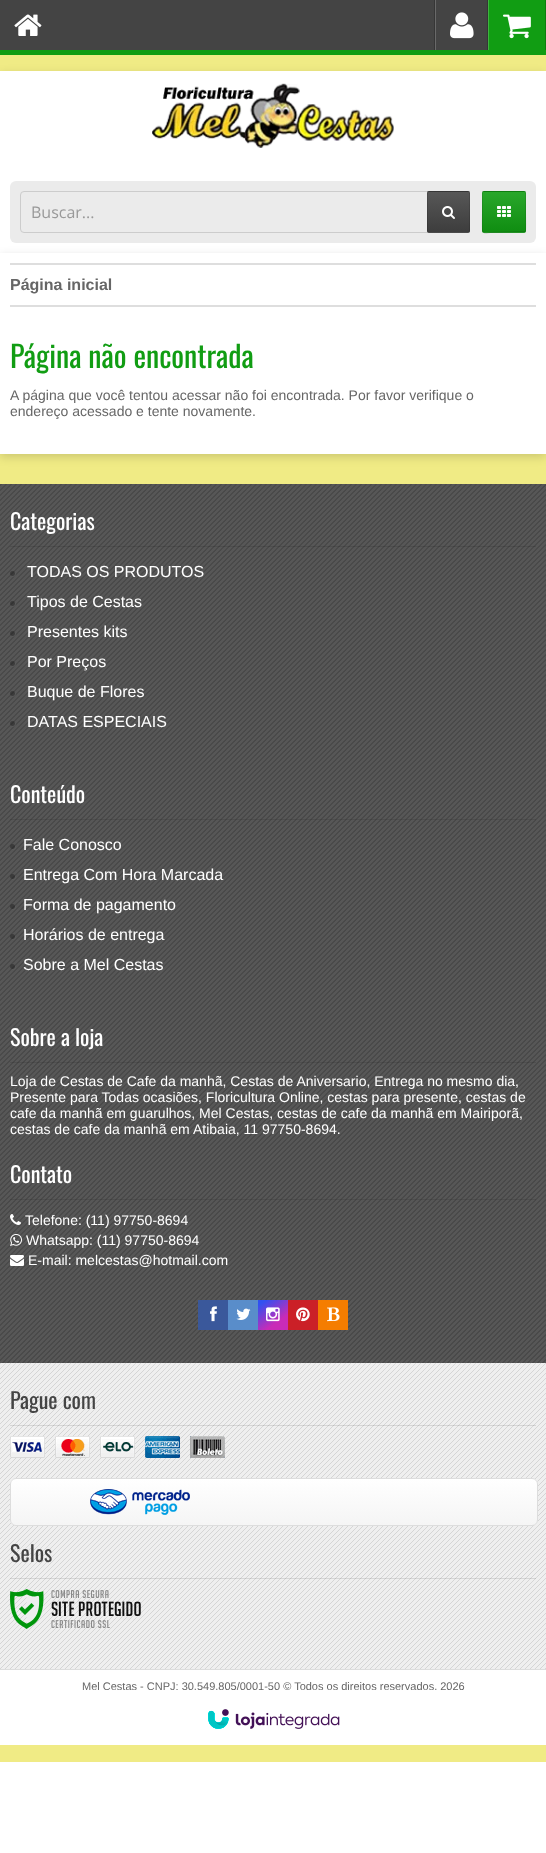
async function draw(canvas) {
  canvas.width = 546;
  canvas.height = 1853;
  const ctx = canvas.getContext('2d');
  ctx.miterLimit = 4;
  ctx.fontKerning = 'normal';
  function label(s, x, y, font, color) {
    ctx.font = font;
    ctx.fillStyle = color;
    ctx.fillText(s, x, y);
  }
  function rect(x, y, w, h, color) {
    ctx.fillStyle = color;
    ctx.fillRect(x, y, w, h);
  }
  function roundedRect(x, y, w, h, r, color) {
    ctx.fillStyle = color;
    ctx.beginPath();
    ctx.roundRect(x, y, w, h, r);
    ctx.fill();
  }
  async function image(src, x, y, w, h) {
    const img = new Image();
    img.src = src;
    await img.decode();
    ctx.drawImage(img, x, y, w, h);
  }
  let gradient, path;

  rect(0, 0, 546, 1853, '#fff');
  rect(0, 55, 546, 1707, '#f0eb85');
  rect(0, 0, 487, 50, '#444');
  rect(0, 50, 546, 5, '#119d13');
  await image('assets/img1.png', 14, 14, 28, 22);
  rect(434, 0, 1, 50, '#363636');
  rect(487, 0, 1, 50, '#363636');
  rect(435, 0, 1, 50, '#696969');
  await image('assets/img2.png', 450, 12, 24, 27);
  rect(489, 0, 56, 50, '#119d13');
  rect(545, 0, 1, 50, '#0e7e0f');
  rect(488, 0, 1, 50, '#41b142');
  await image('assets/img3.png', 503, 14, 28, 25);
  ctx.fillStyle = '#00000026';
  ctx.filter = 'blur(5px)';
  ctx.beginPath();
  ctx.rect(0, 74, 546, 182);
  ctx.fill();
  ctx.filter = 'none';
  rect(0, 71, 546, 182, '#fff');
  await image('assets/img4.png', 152, 83, 242, 65);
  ctx.fillStyle = '#00000026';
  ctx.filter = 'blur(5px)';
  ctx.beginPath();
  ctx.rect(0, 256, 546, 201);
  ctx.fill();
  ctx.filter = 'none';
  roundedRect(10, 181, 526, 62, 6, '#ebebeb');
  ctx.beginPath();
  ctx.roundRect(20.5, 191.5, 427, 41, 3.5);
  ctx.strokeStyle = '#ccc';
  ctx.stroke();
  label('Buscar...', 31, 218, '16px Open Sans', '#999');
  roundedRect(427, 191, 43, 42, 2, '#444');
  gradient = ctx.createLinearGradient(449, 152, 449, 192);
  gradient.addColorStop(0, '#ffffff1a');
  gradient.addColorStop(1, '#0000001a');
  ctx.fillStyle = gradient;
  ctx.fillRect(427, 191, 43, 1);
  gradient = ctx.createLinearGradient(449, 192, 449, 232);
  gradient.addColorStop(0, '#ffffff1a');
  gradient.addColorStop(1, '#0000001a');
  ctx.fillStyle = gradient;
  ctx.fillRect(427, 192, 43, 40);
  gradient = ctx.createLinearGradient(449, 232, 449, 272);
  gradient.addColorStop(0, '#ffffff1a');
  gradient.addColorStop(1, '#0000001a');
  ctx.fillStyle = gradient;
  ctx.fillRect(427, 232, 43, 1);
  ctx.beginPath();
  ctx.roundRect(427.5, 191.5, 42, 41, 1.5);
  ctx.strokeStyle = '#00000021';
  ctx.stroke();
  await image('assets/img5.png', 442, 206, 13, 13);
  roundedRect(482, 191, 44, 42, 2, '#119d13');
  gradient = ctx.createLinearGradient(504, 152, 504, 192);
  gradient.addColorStop(0, '#ffffff1a');
  gradient.addColorStop(1, '#0000001a');
  ctx.fillStyle = gradient;
  ctx.fillRect(482, 191, 44, 1);
  gradient = ctx.createLinearGradient(504, 192, 504, 232);
  gradient.addColorStop(0, '#ffffff1a');
  gradient.addColorStop(1, '#0000001a');
  ctx.fillStyle = gradient;
  ctx.fillRect(482, 192, 44, 40);
  gradient = ctx.createLinearGradient(504, 232, 504, 272);
  gradient.addColorStop(0, '#ffffff1a');
  gradient.addColorStop(1, '#0000001a');
  ctx.fillStyle = gradient;
  ctx.fillRect(482, 232, 44, 1);
  path = new Path2D('M525 232L490.5 232.5C488 232.5 485 234 483 232');
  ctx.strokeStyle = '#00000033';
  ctx.stroke(path);
  path = new Path2D('M483 232C481.5 230.5 482.5 215 482.5 212V199.5C482.5 190 481 191.5 490.5 191.5H517.5C527 191.5 525.5 190 525.5 199.5V212C525.5 215 526.5 230.5 525 232');
  ctx.strokeStyle = '#0000001a';
  ctx.stroke(path);
  await image('assets/img6.png', 497, 206, 14, 11);
  rect(0, 253, 546, 201, '#fff');
  rect(10, 263, 526, 2, '#dedede');
  rect(10, 305, 526, 2, '#dedede');
  label('Página inicial', 10, 290, 'bold 16px Liberation Sans', '#666');
  label('Página não encontrada', 10, 368, '30px Oswald', '#119d13');
  label('A página que você tentou acessar não foi encontrada. Por favor verifique o', 10, 400, '14px Liberation Sans', '#666');
  label('endereço acessado e tente novamente.', 10, 416, '14px Liberation Sans', '#666');
  rect(0, 484, 546, 879, '#444');
  await image('assets/img7.png', 0, 484, 546, 879);
  rect(10, 546, 526, 1, '#0000001a');
  label('Categorias', 10, 530, '22px Oswald', '#fff');
  await image('assets/img8.png', 10, 571, 6, 6);
  label('TODAS OS PRODUTOS', 27, 577, '16px Liberation Sans', '#fff');
  await image('assets/img8.png', 10, 601, 6, 6);
  label('Tipos de Cestas', 27, 607, '16px Liberation Sans', '#fff');
  await image('assets/img8.png', 10, 631, 6, 6);
  label('Presentes kits', 27, 637, '16px Liberation Sans', '#fff');
  await image('assets/img8.png', 10, 661, 6, 6);
  label('Por Preços', 27, 667, '16px Liberation Sans', '#fff');
  await image('assets/img8.png', 10, 691, 6, 6);
  label('Buque de Flores', 27, 697, '16px Liberation Sans', '#fff');
  await image('assets/img8.png', 10, 721, 6, 6);
  label('DATAS ESPECIAIS', 27, 727, '16px Liberation Sans', '#fff');
  rect(10, 819, 526, 1, '#0000001a');
  label('Conteúdo', 10, 803, '22px Oswald', '#fff');
  await image('assets/img9.png', 10, 844, 6, 6);
  label('Fale Conosco', 23, 850, '16px Liberation Sans', '#fff');
  await image('assets/img9.png', 10, 874, 6, 6);
  label('Entrega Com Hora Marcada', 23, 880, '16px Liberation Sans', '#fff');
  await image('assets/img9.png', 10, 904, 6, 6);
  label('Forma de pagamento', 23, 910, '16px Liberation Sans', '#fff');
  await image('assets/img9.png', 10, 934, 6, 6);
  label('Horários de entrega', 23, 940, '16px Liberation Sans', '#fff');
  await image('assets/img9.png', 10, 964, 6, 6);
  label('Sobre a Mel Cestas', 23, 970, '16px Liberation Sans', '#fff');
  rect(10, 1062, 526, 1, '#0000001a');
  label('Sobre a loja', 10, 1046, '22px Oswald', '#fff');
  label('Loja de Cestas de Cafe da manhã, Cestas de Aniversario, Entrega no mesmo dia,', 10, 1086, '14px Liberation Sans', '#fff');
  label('Presente para Todas ocasiões, Floricultura Online, cestas para presente, cestas de', 10, 1102, '14px Liberation Sans', '#fff');
  label('cafe da manhã em guarulhos, Mel Cestas, cestas de cafe da manhã em Mairiporã,', 10, 1118, '14px Liberation Sans', '#fff');
  label('cestas de cafe da manhã em', 10, 1134, '14px Liberation Sans', '#fff');
  label('Atibaia, 11 97750-8694.', 193, 1134, '14px Liberation Sans', '#fff');
  rect(10, 1199, 526, 1, '#0000001a');
  label('Contato', 10, 1183, '22px Oswald', '#fff');
  await image('assets/img10.png', 10, 1214, 11, 11);
  label('Telefone: (11) 97750-8694', 25, 1225, '14px Liberation Sans', '#fff');
  await image('assets/img11.png', 10, 1234, 12, 12);
  label('Whatsapp: (11) 97750-8694', 26, 1245, '14px Liberation Sans', '#fff');
  await image('assets/img12.png', 10, 1255, 14, 11);
  label('E-mail: melcestas@hotmail.com', 28, 1265, '14px Liberation Sans', '#fff');
  rect(198, 1300, 30, 30, '#3a589b');
  await image('assets/img13.png', 210, 1306, 7, 16);
  rect(228, 1300, 30, 30, '#598dca');
  await image('assets/img14.png', 236, 1308, 15, 12);
  gradient = ctx.createLinearGradient(261, 1298, 285, 1332);
  gradient.addColorStop(0.1, '#3051f1');
  gradient.addColorStop(0.7, '#c92bb7');
  ctx.fillStyle = gradient;
  ctx.fillRect(258, 1300, 30, 30);
  await image('assets/img15.png', 266, 1307, 14, 15);
  rect(288, 1300, 30, 30, '#cb2027');
  await image('assets/img16.png', 296, 1307, 14, 15);
  rect(318, 1300, 30, 30, '#f57d00');
  await image('assets/img17.png', 327, 1307, 13, 15);
  rect(0, 1363, 546, 306, '#eee');
  await image('assets/img18.png', 0, 1363, 546, 306);
  rect(10, 1425, 526, 1, '#0000001a');
  label('Pague com', 10, 1409, '22px Oswald', '#444');
  await image('assets/img19.png', 10, 1436, 35, 22);
  await image('assets/img20.png', 55, 1436, 35, 22);
  await image('assets/img21.png', 100, 1436, 35, 22);
  await image('assets/img22.png', 145, 1436, 35, 22);
  await image('assets/img23.png', 190, 1436, 35, 22);
  ctx.save();
  ctx.beginPath();
  ctx.roundRect(10, 1478, 528, 48, 6);
  ctx.clip();
  gradient = ctx.createLinearGradient(274, 1479, 274, 1525);
  gradient.addColorStop(0, '#fff');
  gradient.addColorStop(1, '#f5f5f5');
  ctx.fillStyle = gradient;
  ctx.fillRect(10, 1479, 528, 46);
  ctx.restore();
  ctx.beginPath();
  ctx.roundRect(10.5, 1478.5, 527, 47, 5.5);
  ctx.strokeStyle = '#ddd';
  ctx.stroke();
  await image('assets/img24.png', 90, 1489, 100, 26);
  rect(10, 1578, 526, 1, '#0000001a');
  label('Selos', 10, 1562, '22px Oswald', '#444');
  await image('assets/img25.png', 10, 1589, 131, 40);
  rect(0, 1670, 546, 75, '#fff');
  rect(0, 1669, 546, 1, '#ddd');
  label('Mel Cestas - CNPJ: 30.549.805/0001-50 © Todos os direitos reservados. 2026', 82, 1690, '11px Liberation Sans', '#666');
  await image('assets/img26.png', 208, 1709, 132, 20);
}

draw(document.querySelector('canvas'));
